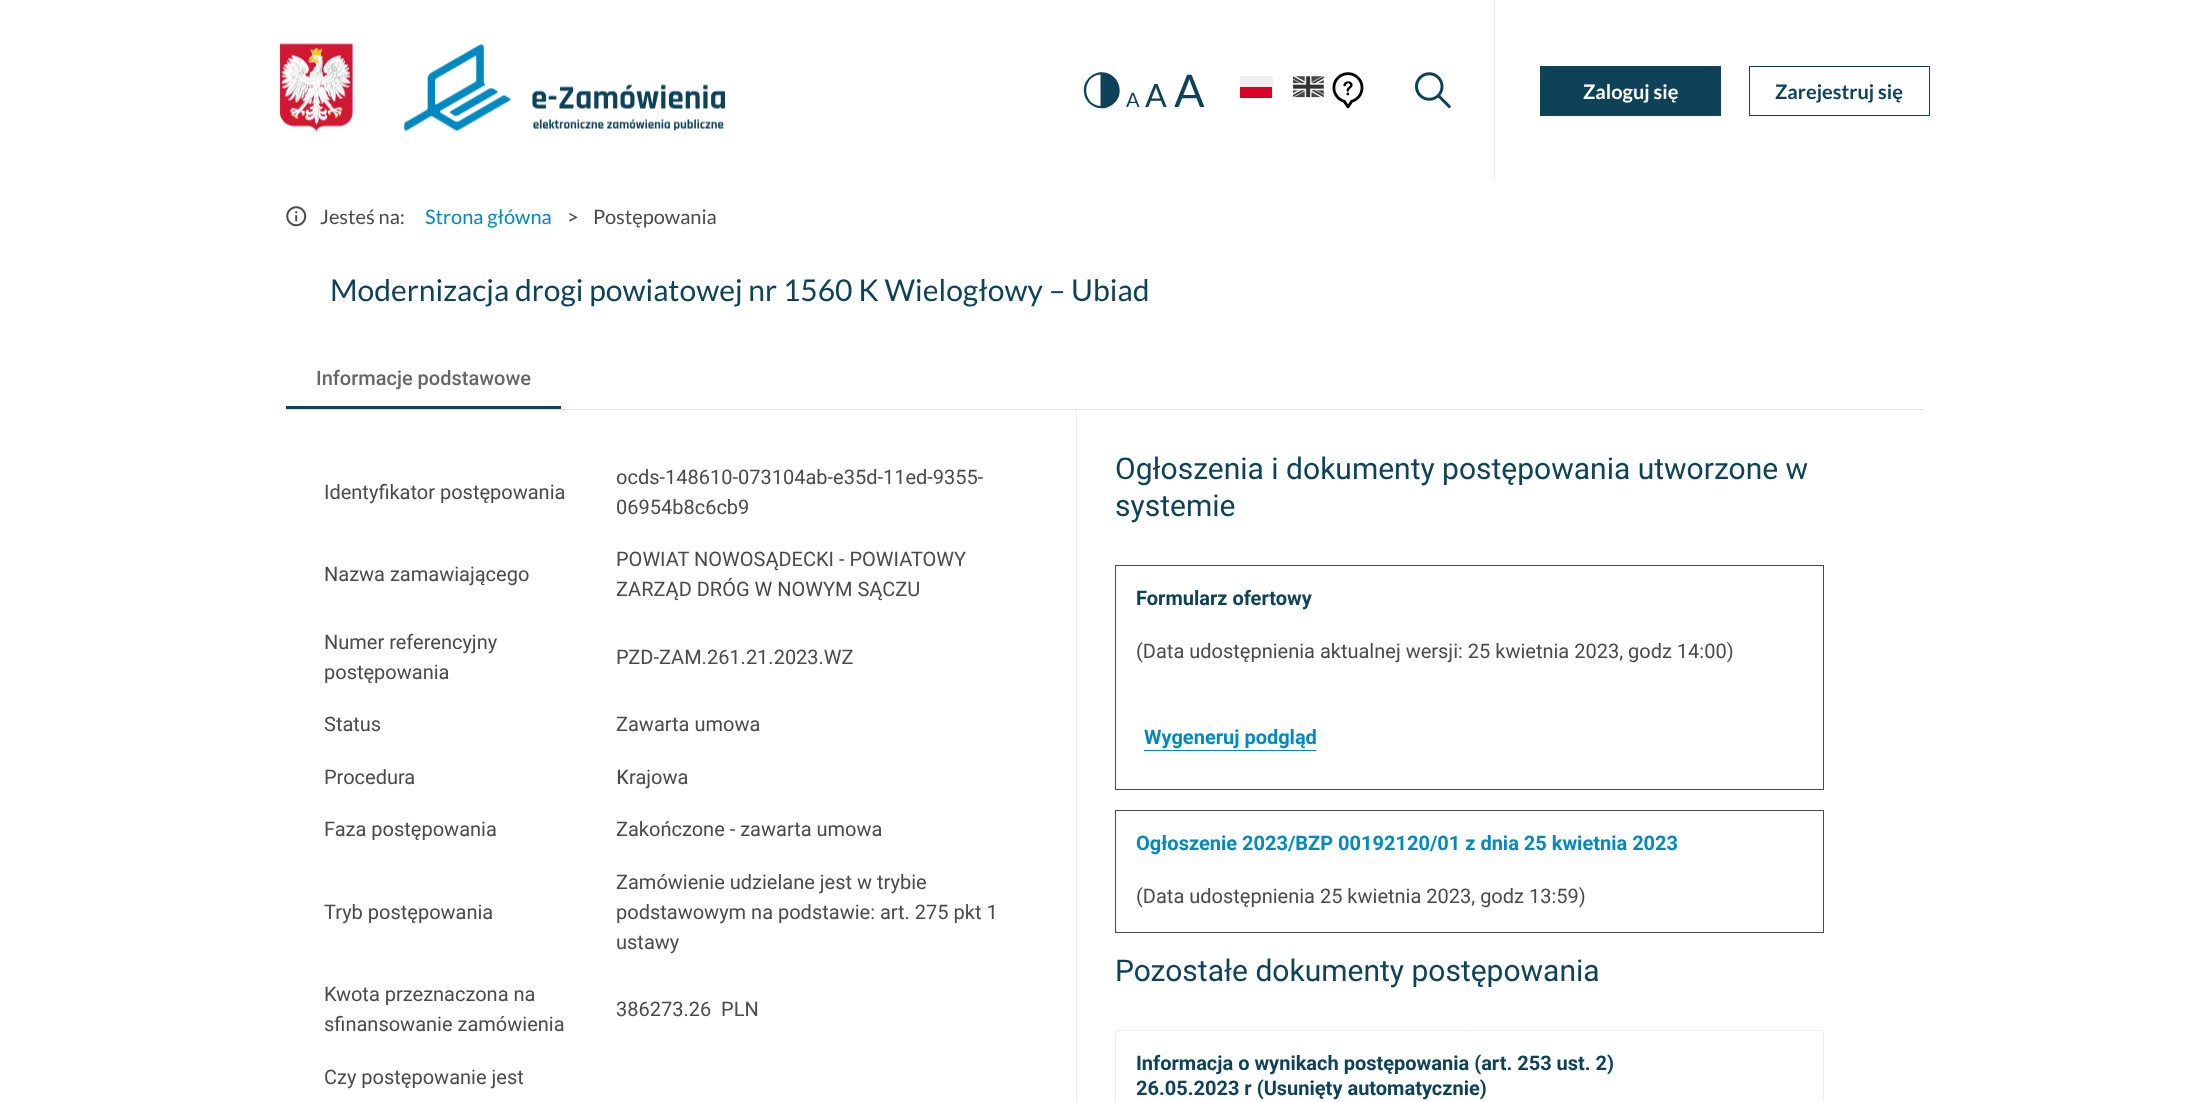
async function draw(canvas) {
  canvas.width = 2209;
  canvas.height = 1102;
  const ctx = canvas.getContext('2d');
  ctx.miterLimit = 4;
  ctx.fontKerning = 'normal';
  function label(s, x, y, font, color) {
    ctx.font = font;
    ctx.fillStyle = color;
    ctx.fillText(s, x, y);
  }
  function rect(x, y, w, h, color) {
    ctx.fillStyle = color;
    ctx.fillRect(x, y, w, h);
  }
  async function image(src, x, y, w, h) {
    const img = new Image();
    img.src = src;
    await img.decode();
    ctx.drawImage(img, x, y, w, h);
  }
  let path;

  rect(0, 0, 2209, 1102, '#fff');
  await image('assets/img1.png', 280, 43, 73, 89);
  await image('assets/img2.png', 404, 44, 321, 87);
  ctx.fillStyle = '#0d4259';
  path = new Path2D('M1119.5 88C1122 105 1101 115 1089 103C1086 100 1084 96 1084 92C1083.5 87.5 1084.5 82.5 1088 79C1098 66.5 1117.5 72.5 1119.5 88ZM1100.5 106V74.5C1081.5 76 1081.5 104.5 1100.5 106Z');
  ctx.fill(path);
  label('A', 1126, 107, '20px Lato', '#0d4259');
  label('A', 1145, 107, '32px Lato', '#0d4259');
  label('A', 1174, 107, '45px Lato', '#0d4259');
  rect(1240, 76, 32, 11, '#f0f0f0');
  rect(1272, 77, 1, 21, '#f0f0f0');
  await image('assets/img3.png', 1293, 76, 31, 22);
  rect(1240, 87, 32, 11, '#d80027');
  await image('assets/img4.png', 1332, 72, 32, 37);
  await image('assets/img5.png', 1415, 72, 36, 37);
  rect(1494, 0, 1, 181, '#ececec');
  rect(1540, 66, 181, 50, '#0d4259');
  label('Zaloguj się', 1583, 99, 'bold 20px Lato', '#fff');
  ctx.strokeStyle = '#0d4259';
  ctx.strokeRect(1749.5, 66.5, 180, 49);
  label('Zarejestruj się', 1775, 99, 'bold 20px Lato', '#0d4259');
  await image('assets/img6.png', 286, 206, 21, 21);
  label('Jesteś na:', 320, 224, '20px Lato', '#4a4a4a');
  label('Strona główna', 425, 224, '20px Lato', '#0089c0');
  label('>', 567, 224, '20px Lato', '#4a4a4a');
  label('Postępowania', 593, 224, '20px Lato', '#4a4a4a');
  label('Modernizacja drogi powiatowej nr 1560 K Wielogłowy – Ubiad', 330, 301, '30px Lato', '#0d4259');
  rect(286, 409, 1638, 1, '#e0e0e0');
  label('Informacje podstawowe', 316, 385, '500 20px Roboto', '#666');
  rect(286, 406, 275, 3, '#0d4259');
  rect(1076, 410, 1, 692, '#ececec');
  label('Identyfikator postępowania', 324, 499, '20px Roboto', '#4a4a4a');
  label('ocds-148610-073104ab-e35d-11ed-9355-', 616, 484, '20px Roboto', '#4a4a4a');
  label('06954b8c6cb9', 616, 514, '20px Roboto', '#4a4a4a');
  label('Nazwa zamawiającego', 324, 581, '20px Roboto', '#4a4a4a');
  label('POWIAT NOWOSĄDECKI - POWIATOWY', 616, 566, '20px Roboto', '#4a4a4a');
  label('ZARZĄD DRÓG W NOWYM SĄCZU', 616, 596, '20px Roboto', '#4a4a4a');
  label('Numer referencyjny', 324, 649, '20px Roboto', '#4a4a4a');
  label('postępowania', 324, 679, '20px Roboto', '#4a4a4a');
  label('PZD-ZAM.261.21.2023.WZ', 616, 664, '20px Roboto', '#4a4a4a');
  label('Status', 324, 731, '20px Roboto', '#4a4a4a');
  label('Zawarta umowa', 616, 731, '20px Roboto', '#4a4a4a');
  label('Procedura', 324, 784, '20px Roboto', '#4a4a4a');
  label('K', 616, 784, '500 20px Noto Sans', '#4a4a4a');
  label('rajowa', 629, 784, '20px Roboto', '#4a4a4a');
  label('Faza postępowania', 324, 836, '20px Roboto', '#4a4a4a');
  label('Zakończone - zawarta umowa', 616, 836, '20px Roboto', '#4a4a4a');
  label('Tryb postępowania', 324, 919, '20px Roboto', '#4a4a4a');
  label('Zamówienie udzielane jest w trybie', 616, 889, '20px Roboto', '#4a4a4a');
  label('podstawowym na podstawie: art. 275 pkt 1', 616, 919, '20px Roboto', '#4a4a4a');
  label('ustawy', 616, 949, '20px Roboto', '#4a4a4a');
  label('Kwota przeznaczona na', 324, 1001, '20px Roboto', '#4a4a4a');
  label('sfinansowanie zamówienia', 324, 1031, '20px Roboto', '#4a4a4a');
  label('386273.26  PLN', 616, 1016, '20px Roboto', '#4a4a4a');
  label('Czy postępowanie jest', 324, 1084, '20px Roboto', '#4a4a4a');
  label('Ogłoszenia i dokumenty postępowania utworzone w', 1115, 479, '30px Roboto', '#0d4259');
  label('systemie', 1115, 516, '30px Roboto', '#0d4259');
  ctx.strokeStyle = '#4a4a4a';
  ctx.strokeRect(1115.5, 565.5, 708, 224);
  label('Formularz ofertowy', 1136, 605, 'bold 20px Roboto', '#0d4259');
  label('(Data udostępnienia aktualnej wersji: 25 kwietnia 2023, godz 14:00)', 1136, 658, '20px Roboto', '#4a4a4a');
  label('Wygeneruj podgląd', 1144, 744, 'bold 20px Roboto', '#0089c0');
  rect(1144, 750, 172, 1, '#0089c0');
  ctx.strokeRect(1115.5, 810.5, 708, 122);
  label('Ogłoszenie 2023/BZP 00192120/01 z dnia 25 kwietnia 2023', 1136, 850, 'bold 20px Roboto', '#0089c0');
  label('(Data udostępnienia 25 kwietnia 2023, godz 13:59)', 1136, 903, '20px Roboto', '#4a4a4a');
  label('Pozostałe dokumenty postępowania', 1115, 981, '30px Roboto', '#0d4259');
  ctx.beginPath();
  ctx.roundRect(1115.5, 1030.5, 708, 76, 3.5);
  ctx.strokeStyle = '#ececec';
  ctx.stroke();
  label('Informacja o wynikach postępowania (art. 253 ust. 2)', 1136, 1070, 'bold 20px Roboto', '#0d4259');
  label('26.05.2023 r (Usunięty automatycznie)', 1136, 1095, 'bold 20px Roboto', '#0d4259');
}

draw(document.querySelector('canvas'));
